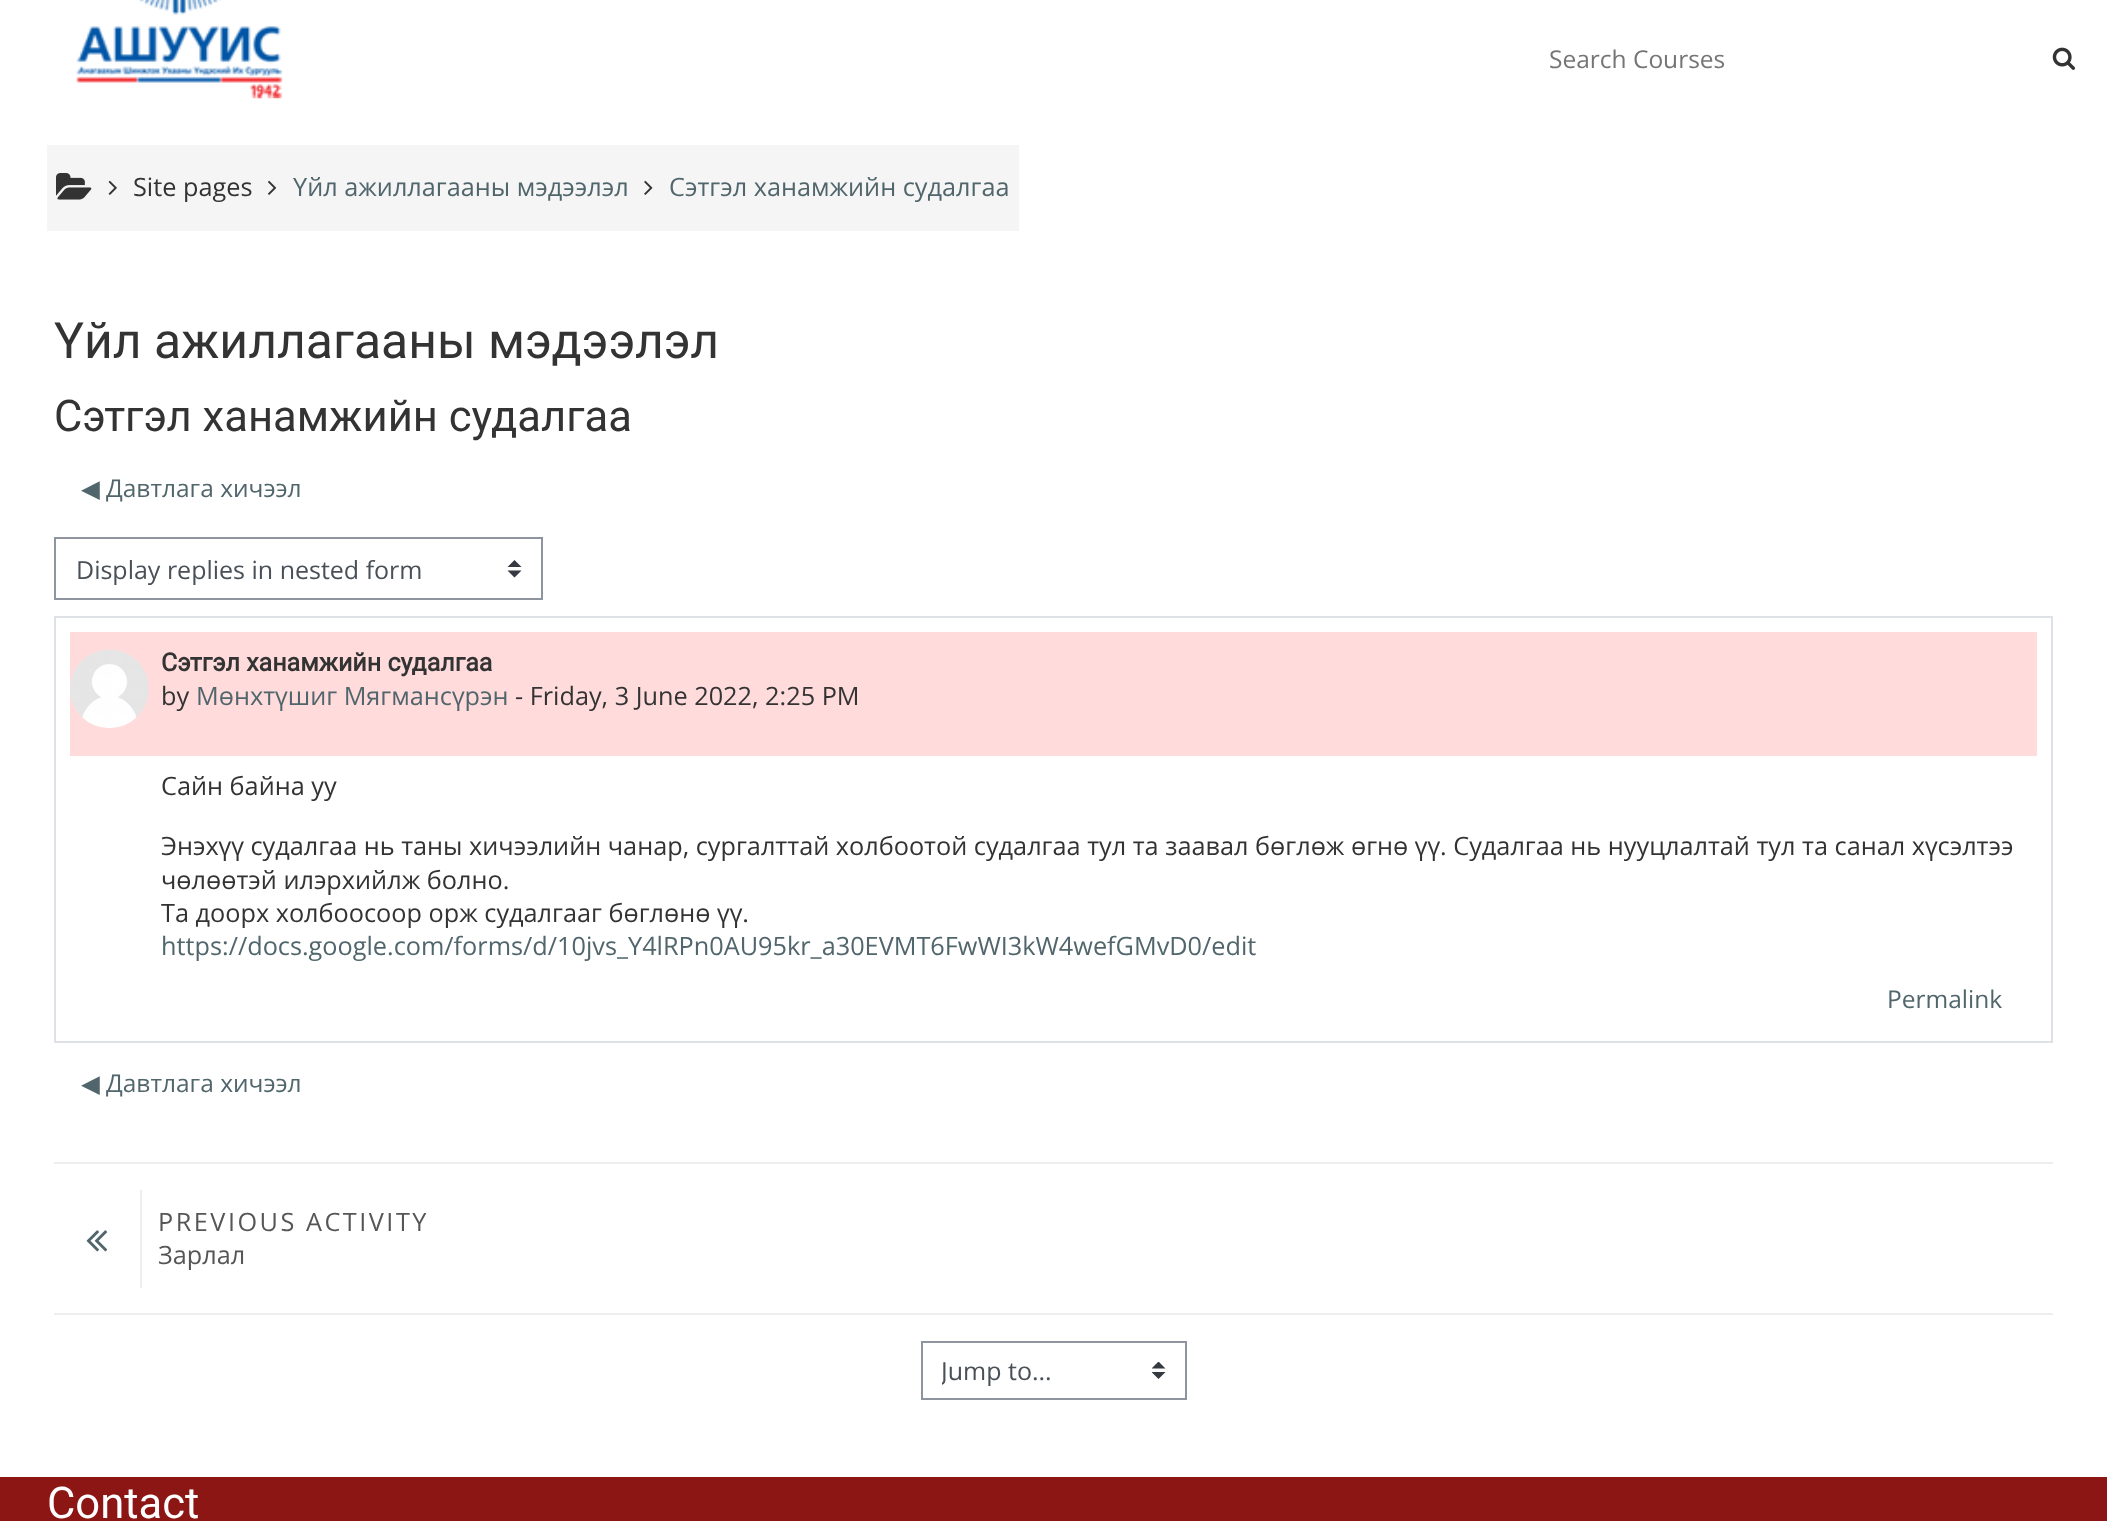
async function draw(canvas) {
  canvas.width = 2107;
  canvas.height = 1521;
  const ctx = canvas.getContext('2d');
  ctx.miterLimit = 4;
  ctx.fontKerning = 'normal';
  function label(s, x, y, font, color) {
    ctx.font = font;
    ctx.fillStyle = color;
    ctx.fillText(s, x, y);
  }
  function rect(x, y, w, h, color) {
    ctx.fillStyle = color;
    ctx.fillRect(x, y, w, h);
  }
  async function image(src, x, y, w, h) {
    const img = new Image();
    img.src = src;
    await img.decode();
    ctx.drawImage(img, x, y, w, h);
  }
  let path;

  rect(0, 0, 2107, 1521, '#fff');
  await image('assets/img1.png', 76, 0, 207, 99);
  label('Search Courses', 1549, 68, '24.5px Open Sans', '#757575');
  await image('assets/img2.png', 2052, 47, 23, 23);
  rect(47, 145, 972, 86, '#f5f5f5');
  await image('assets/img3.png', 56, 173, 36, 27);
  await image('assets/img4.png', 108, 180, 9, 15);
  label('Site pages', 133, 196, '25.27px Open Sans', '#333');
  await image('assets/img5.png', 268, 180, 9, 15);
  label('Үйл ажиллагааны мэдээлэл', 293, 196, '25.27px Open Sans', '#51666c');
  await image('assets/img6.png', 644, 180, 9, 15);
  label('Сэтгэл ханамжийн судалгаа', 669, 196, '25.27px Open Sans', '#51666c');
  label('Үйл ажиллагааны мэдээлэл', 54, 358, '49.9px Roboto', '#333');
  label('Сэтгэл ханамжийн судалгаа', 54, 431, '43.6px Roboto', '#333');
  label('◀︎', 81, 497, '24.5px DejaVu Sans', '#51666c');
  label('Давтлага хичээл', 106, 497, '24.5px Open Sans', '#51666c');
  ctx.fillStyle = '#343a40';
  path = new Path2D('M514.5 560L507.5 567H521.5ZM514.5 577.5L507.5 570.5H521.5Z');
  ctx.fill(path);
  ctx.strokeStyle = '#8f959e';
  ctx.lineWidth = 2;
  ctx.strokeRect(55, 538, 487, 61);
  label('Display replies in nested form', 76, 579, '25px Open Sans', '#495057');
  ctx.strokeStyle = '#dee2e6';
  ctx.strokeRect(55, 617, 1997, 425);
  rect(70, 632, 1967, 124, '#ffdbdc');
  await image('assets/img7.png', 70, 649, 79, 79);
  label('Сэтгэл ханамжийн судалгаа', 161, 671, 'bold 25px Roboto', '#333');
  label('by', 161, 705, '25.27px Open Sans', '#333');
  label('Мөнхтүшиг Мягмансүрэн', 196, 705, '25.27px Open Sans', '#51666c');
  label('- Friday, 3 June 2022, 2:25 PM', 515, 705, '25.27px Open Sans', '#333');
  label('Сайн байна уу', 161, 795, '25.27px Open Sans', '#333');
  label('Энэхүү судалгаа нь таны хичээлийн чанар, сургалттай холбоотой судалгаа тул та заавал бөглөж өгнө үү. Судалгаа нь нууцлалтай тул та санал хүсэлтээ', 161, 855, '25.27px Open Sans', '#333');
  label('чөлөөтэй илэрхийлж болно.', 161, 889, '25.27px Open Sans', '#333');
  label('Та доорх холбоосоор орж судалгааг бөглөнө үү.', 161, 922, '25.27px Open Sans', '#333');
  label('https://docs.google.com/forms/d/10jvs_Y4lRPn0AU95kr_a30EVMT6FwWI3kW4wefGMvD0/edit', 161, 955, '25.27px Open Sans', '#51666c');
  label('Permalink', 1887, 1008, '24.5px Open Sans', '#51666c');
  label('◀︎', 81, 1092, '24.5px DejaVu Sans', '#51666c');
  label('Давтлага хичээл', 106, 1092, '24.5px Open Sans', '#51666c');
  rect(54, 1162, 1999, 2, '#eee');
  rect(54, 1313, 1999, 2, '#eee');
  rect(140, 1190, 2, 98, '#eee');
  await image('assets/img8.png', 86, 1230, 22, 22);
  ctx.letterSpacing = '2.5px';
  label('PREVIOUS ACTIVITY', 158, 1231, '25.27px Open Sans', '#565656');
  ctx.letterSpacing = '0px';
  label('Зарлал', 158, 1264, '25.27px Open Sans', '#565656');
  ctx.save();
  ctx.beginPath();
  ctx.rect(1152, 1362, 14, 17);
  ctx.clip();
  ctx.fillStyle = '#343a40';
  path = new Path2D('M1158.5 1361.5L1151.5 1368.5H1165.5ZM1158.5 1379L1151.5 1372H1165.5Z');
  ctx.fill(path);
  ctx.restore();
  ctx.strokeStyle = '#8f959e';
  ctx.strokeRect(922, 1342, 264, 57);
  ctx.save();
  ctx.beginPath();
  ctx.rect(942, 1351, 197, 39);
  ctx.clip();
  label('Jump to...', 941, 1380, '25px Open Sans', '#495057');
  ctx.restore();
  rect(0, 1477, 2107, 44, '#8c1614');
  label('Contact', 47, 1518, '43.6px Roboto', '#fff');
}

draw(document.querySelector('canvas'));
